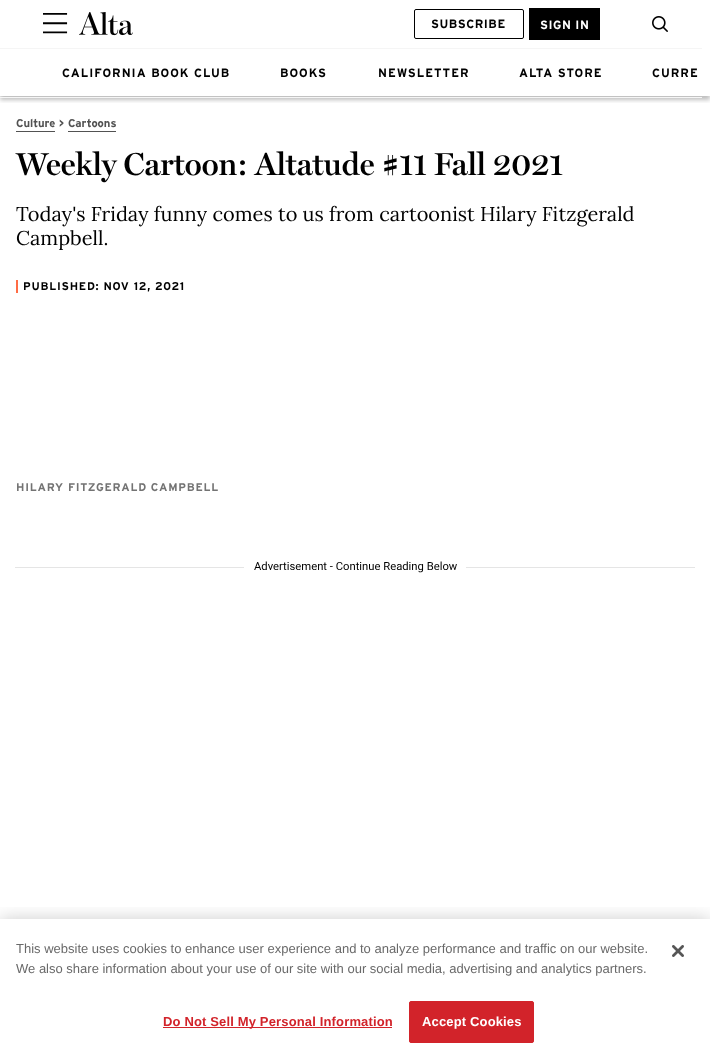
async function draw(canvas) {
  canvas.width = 710;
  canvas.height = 1059;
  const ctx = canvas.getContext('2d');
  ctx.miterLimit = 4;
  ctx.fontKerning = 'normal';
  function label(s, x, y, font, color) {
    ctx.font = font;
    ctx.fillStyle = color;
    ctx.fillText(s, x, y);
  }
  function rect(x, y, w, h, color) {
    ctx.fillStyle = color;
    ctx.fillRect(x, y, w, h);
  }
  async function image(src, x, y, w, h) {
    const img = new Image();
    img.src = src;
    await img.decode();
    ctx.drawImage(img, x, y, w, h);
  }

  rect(0, 0, 710, 1059, '#fff');
  ctx.save();
  ctx.beginPath();
  ctx.rect(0, 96, 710, 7);
  ctx.clip();
  ctx.fillStyle = '#00000040';
  ctx.filter = 'blur(2px)';
  ctx.beginPath();
  ctx.rect(0, 4, 710, 96);
  ctx.fill();
  ctx.filter = 'none';
  ctx.restore();
  await image('assets/img1.png', 43, 13, 25, 21);
  await image('assets/img2.png', 79, 12, 54, 24);
  ctx.beginPath();
  ctx.roundRect(414.5, 9.5, 109, 29, 1.5);
  ctx.strokeStyle = '#000';
  ctx.stroke();
  ctx.letterSpacing = '0.5px';
  label('SUBSCRIBE', 431, 28, 'bold 12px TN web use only', '#000');
  rect(529, 8, 71, 32, '#000');
  label('SIGN IN', 540, 29, 'bold 12px TN web use only', '#fff');
  await image('assets/img3.png', 652, 16, 16, 16);
  rect(0, 48, 702, 1, '#f5f5f5');
  rect(0, 97, 702, 1, '#f5f5f5');
  ctx.letterSpacing = '1px';
  label('CALIFORNIA BOOK CLUB', 62, 77, 'bold 12px TN web use only', '#000');
  label('BOOKS', 280, 77, 'bold 12px TN web use only', '#000');
  label('NEWSLETTER', 378, 77, 'bold 12px TN web use only', '#000');
  label('ALTA STORE', 519, 77, 'bold 12px TN web use only', '#000');
  label('CURRE', 652, 77, 'bold 12px TN web use only', '#000');
  ctx.letterSpacing = '0px';
  label('Culture', 16, 127, 'bold 11.25px TN web use only', '#525252');
  rect(16, 131, 39, 1, '#525252');
  label('>', 59, 127, 'bold 11.25px TN web use only', '#525252');
  label('Cartoons', 68, 127, 'bold 11.25px TN web use only', '#525252');
  rect(68, 131, 48, 1, '#525252');
  label('Weekly Cartoon: Altatude #11 Fall 2021', 16, 175, '600 32px TN web use only', '#000');
  label('Today\'s Friday funny comes to us from cartoonist Hilary Fitzgerald', 16, 221, '20px Lora', '#000');
  label('Campbell.', 16, 245, '20px Lora', '#000');
  rect(16, 280, 2, 13, '#ff6c45');
  ctx.letterSpacing = '0.75px';
  label('PUBLISHED: NOV 12, 2021', 23, 290, 'bold 11.25px TN web use only', '#000');
  label('HILARY FITZGERALD CAMPBELL', 16, 491, 'bold 11.25px TN web use only', '#737373');
  rect(15, 567, 229, 1, '#e5e5e5');
  ctx.letterSpacing = '0px';
  label('Advertisement - Continue Reading Below', 254, 570, '11.25px Roboto', '#000');
  rect(466, 567, 229, 1, '#e5e5e5');
  ctx.save();
  ctx.beginPath();
  ctx.rect(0, 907, 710, 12);
  ctx.clip();
  ctx.fillStyle = '#00000033';
  ctx.filter = 'blur(9px)';
  ctx.beginPath();
  ctx.rect(0, 919, 710, 140);
  ctx.fill();
  ctx.filter = 'none';
  ctx.restore();
  label('This website uses cookies to enhance user experience and to analyze performance and traffic on our website.', 16, 953, '13px Liberation Sans', '#696969');
  label('We also share information about your use of our site with our social media, advertising and analytics partners.', 16, 973, '13px Liberation Sans', '#696969');
  rect(163, 1027, 229, 1, '#d2232a');
  ctx.letterSpacing = '0.15px';
  label('Do Not Sell My Personal Information', 163, 1026, 'bold 13px Liberation Sans', '#d2232a');
  ctx.beginPath();
  ctx.roundRect(409.5, 1001.5, 124, 41, 1.5);
  ctx.fill();
  ctx.strokeStyle = '#d2232a';
  ctx.stroke();
  label('Accept Cookies', 422, 1026, 'bold 13px Liberation Sans', '#fff');
  await image('assets/img4.png', 672, 945, 12, 12);
}

draw(document.querySelector('canvas'));
